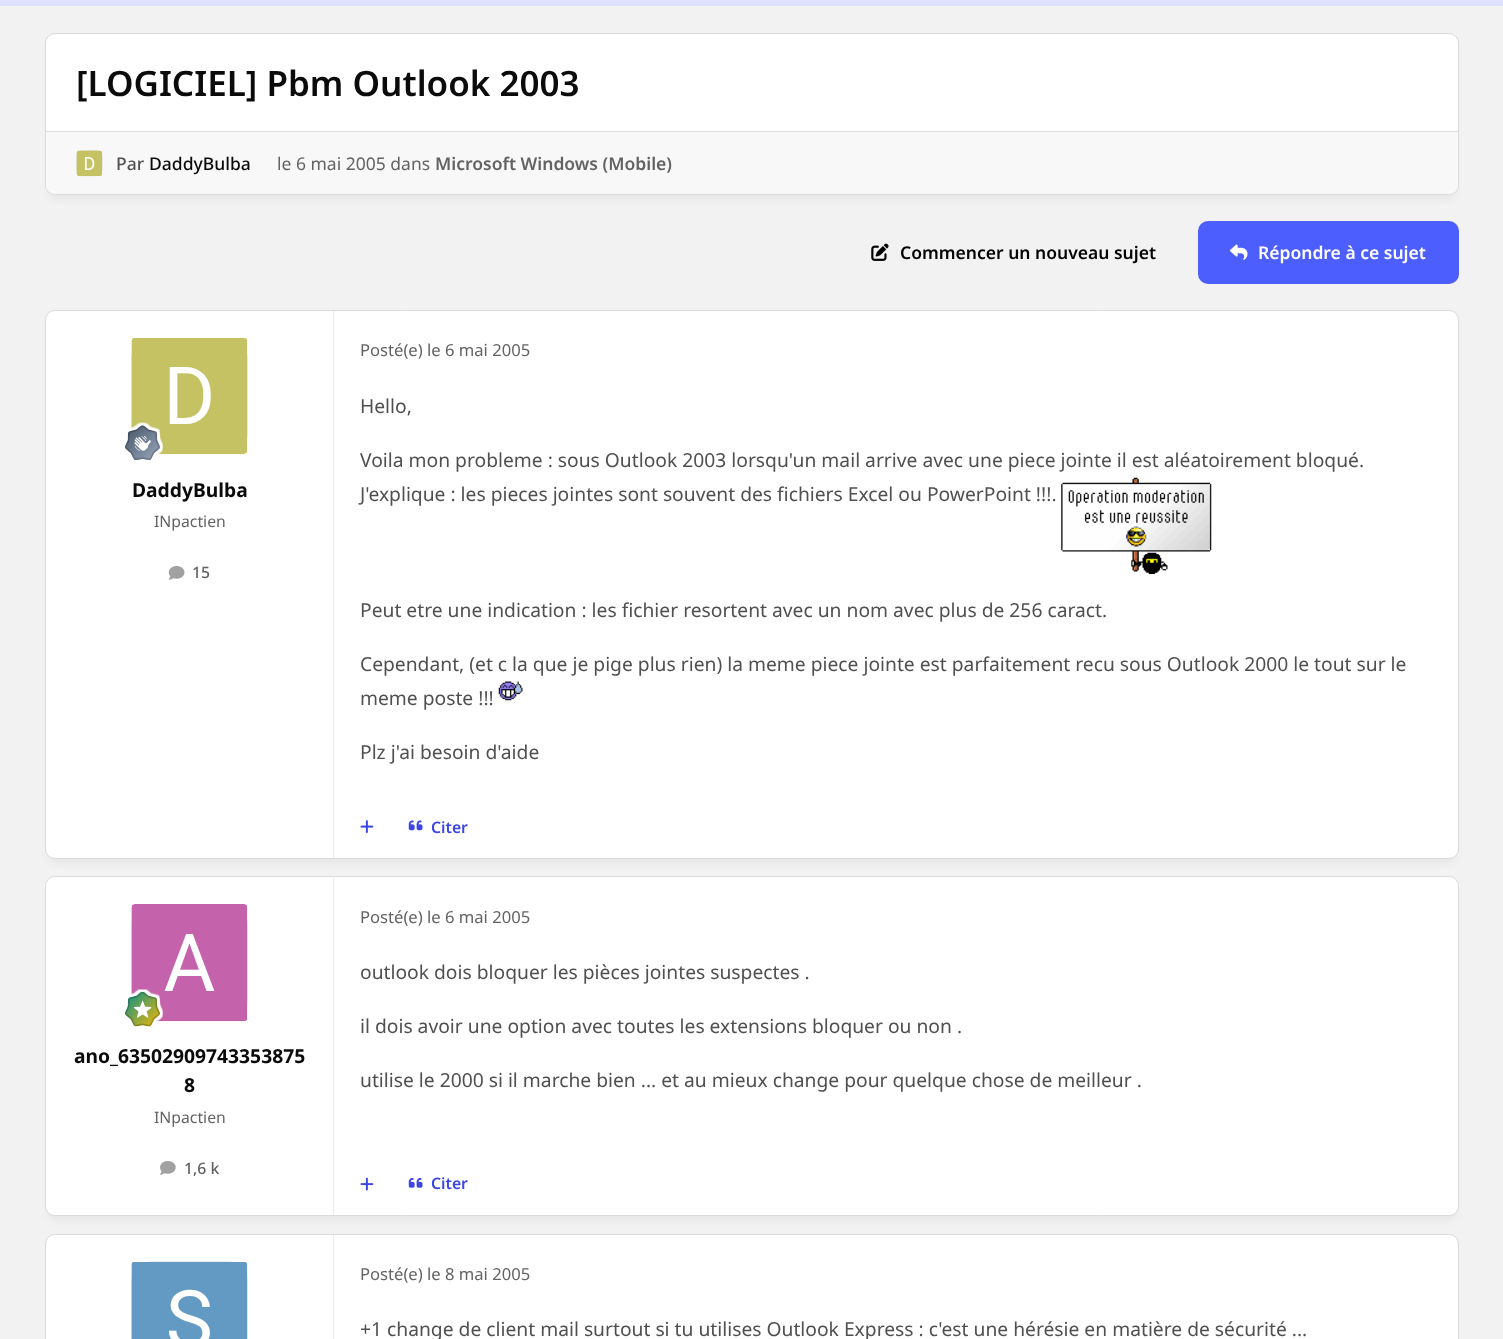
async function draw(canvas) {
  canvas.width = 1503;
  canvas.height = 1339;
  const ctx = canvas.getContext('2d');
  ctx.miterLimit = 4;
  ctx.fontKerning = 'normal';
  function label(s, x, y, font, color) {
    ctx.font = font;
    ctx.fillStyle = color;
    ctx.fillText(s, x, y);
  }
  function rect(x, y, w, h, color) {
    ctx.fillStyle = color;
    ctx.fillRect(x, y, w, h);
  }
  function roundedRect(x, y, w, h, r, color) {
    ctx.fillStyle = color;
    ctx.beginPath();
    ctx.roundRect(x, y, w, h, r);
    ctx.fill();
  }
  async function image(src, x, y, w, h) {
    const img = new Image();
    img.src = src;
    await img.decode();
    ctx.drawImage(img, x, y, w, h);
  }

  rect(0, 0, 1503, 1339, '#f2f2f2');
  rect(0, 0, 1503, 6, '#e0e3ff');
  ctx.fillStyle = '#0303030d';
  ctx.filter = 'blur(4.5px)';
  ctx.beginPath();
  ctx.roundRect(49, 44, 1406, 155, 6);
  ctx.fill();
  ctx.filter = 'none';
  ctx.fillStyle = '#fff';
  ctx.beginPath();
  ctx.roundRect(45.5, 33.5, 1413, 161, 9.5);
  ctx.fill();
  ctx.strokeStyle = '#dbdbdb';
  ctx.stroke();
  label('[LOGICIEL] Pbm Outlook 2003', 76, 96, '600 35px Noto Sans', '#0b0b0b');
  ctx.fillStyle = '#f8f8f8';
  ctx.beginPath();
  ctx.roundRect(46, 131, 1412, 63, [0, 0, 10, 10]);
  ctx.fill();
  rect(46, 131, 1412, 1, '#dedede');
  roundedRect(76, 150, 27, 26, 8, '#eaeaea');
  await image('assets/img1.png', 76, 150, 27, 27);
  label('Par', 116, 170, '500 17.5px Noto Sans', '#505050');
  label('DaddyBulba', 149, 170, '500 17.5px Noto Sans', '#0b0b0b');
  label('le 6 mai 2005 dans', 277, 170, '17.5px Noto Sans', '#636363');
  label('Microsoft Windows (Mobile)', 435, 170, '600 17.5px Noto Sans', '#636363');
  await image('assets/img2.png', 871, 243, 18, 18);
  label('Commencer un nouveau sujet', 900, 259, '600 17.5px Noto Sans', '#030303');
  roundedRect(1198, 221, 261, 63, 10, '#4d5eff');
  await image('assets/img3.png', 1230, 244, 18, 16);
  label('Répondre à ce sujet', 1258, 259, '600 17.5px Noto Sans', '#fff');
  ctx.fillStyle = '#0303030d';
  ctx.filter = 'blur(4.5px)';
  ctx.beginPath();
  ctx.roundRect(49, 321, 1406, 542, 6);
  ctx.fill();
  ctx.filter = 'none';
  ctx.fillStyle = '#fff';
  ctx.beginPath();
  ctx.roundRect(45.5, 310.5, 1413, 548, 9.5);
  ctx.fill();
  ctx.stroke();
  rect(333, 311, 1, 547, '#eaeaea');
  roundedRect(131, 338, 117, 116, 21, '#eaeaea');
  await image('assets/img4.png', 131, 338, 117, 116);
  await image('assets/img5.png', 125, 422, 38, 38);
  label('DaddyBulba', 132, 497, 'bold 19.25px Noto Sans', '#0b0b0b');
  label('INpactien', 154, 527, '15.75px Noto Sans', '#636363');
  await image('assets/img6.png', 168, 566, 17, 14);
  label('15', 192, 578, '500 15.75px Noto Sans', '#636363');
  label('Posté(e) le 6 mai 2005', 360, 356, '16.6px Noto Sans', '#636363');
  label('Hello,', 360, 413, '19.25px Noto Sans', '#505050');
  label('Voila mon probleme : sous Outlook 2003 lorsqu\'un mail arrive avec une piece jointe il est aléatoirement bloqué.', 360, 467, '19.25px Noto Sans', '#505050');
  label('J\'explique : les pieces jointes sont souvent des fichiers Excel ou PowerPoint !!!.', 360, 501, '19.25px Noto Sans', '#505050');
  await image('assets/img7.png', 1061, 477, 151, 97);
  label('Peut etre une indication : les fichier resortent avec un nom avec plus de 256 caract.', 360, 617, '19.25px Noto Sans', '#505050');
  label('Cependant, (et c la que je pige plus rien) la meme piece jointe est parfaitement recu sous Outlook 2000 le tout sur le', 360, 671, '19.25px Noto Sans', '#505050');
  label('meme poste !!!', 360, 705, '19.25px Noto Sans', '#505050');
  await image('assets/img8.png', 498, 681, 25, 20);
  label('Plz j\'ai besoin d\'aide', 360, 759, '19.25px Noto Sans', '#505050');
  await image('assets/img9.png', 360, 820, 14, 13);
  await image('assets/img10.png', 408, 820, 15, 11);
  label('Citer', 431, 833, '600 15.75px Noto Sans', '#3c46e6');
  ctx.fillStyle = '#0303030d';
  ctx.filter = 'blur(4.5px)';
  ctx.beginPath();
  ctx.roundRect(49, 888, 1406, 332, 6);
  ctx.fill();
  ctx.filter = 'none';
  ctx.fillStyle = '#fff';
  ctx.beginPath();
  ctx.roundRect(45.5, 876.5, 1413, 339, 9.5);
  ctx.fill();
  ctx.stroke();
  rect(333, 878, 1, 337, '#eaeaea');
  roundedRect(131, 904, 117, 117, 21, '#eaeaea');
  await image('assets/img11.png', 131, 904, 117, 118);
  await image('assets/img12.png', 125, 989, 38, 38);
  label('ano_63502909743353875', 74, 1063, 'bold 19.25px Noto Sans', '#0b0b0b');
  label('8', 184, 1092, 'bold 19.25px Noto Sans', '#0b0b0b');
  label('INpactien', 154, 1123, '15.75px Noto Sans', '#636363');
  await image('assets/img13.png', 160, 1161, 16, 14);
  label('1,6 k', 184, 1174, '500 15.75px Noto Sans', '#636363');
  label('Posté(e) le 6 mai 2005', 360, 923, '16.6px Noto Sans', '#636363');
  label('outlook dois bloquer les pièces jointes suspectes .', 360, 979, '19.25px Noto Sans', '#505050');
  label('il dois avoir une option avec toutes les extensions bloquer ou non .', 360, 1033, '19.25px Noto Sans', '#505050');
  label('utilise le 2000 si il marche bien ... et au mieux change pour quelque chose de meilleur .', 360, 1087, '19.25px Noto Sans', '#505050');
  await image('assets/img14.png', 360, 1177, 14, 14);
  await image('assets/img15.png', 408, 1177, 15, 11);
  label('Citer', 431, 1189, '600 15.75px Noto Sans', '#3c46e6');
  ctx.fillStyle = '#fff';
  ctx.beginPath();
  ctx.roundRect(45.5, 1234.5, 1413, 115, 9.5);
  ctx.fill();
  ctx.stroke();
  rect(333, 1235, 1, 104, '#eaeaea');
  roundedRect(131, 1261, 117, 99, 21, '#eaeaea');
  await image('assets/img16.png', 131, 1262, 117, 77);
  label('Posté(e) le 8 mai 2005', 360, 1280, '16.6px Noto Sans', '#636363');
  label('+1 change de client mail surtout si tu utilises Outlook Express : c\'est une hérésie en matière de sécurité ...', 360, 1336, '19.25px Noto Sans', '#505050');
}

draw(document.querySelector('canvas'));
